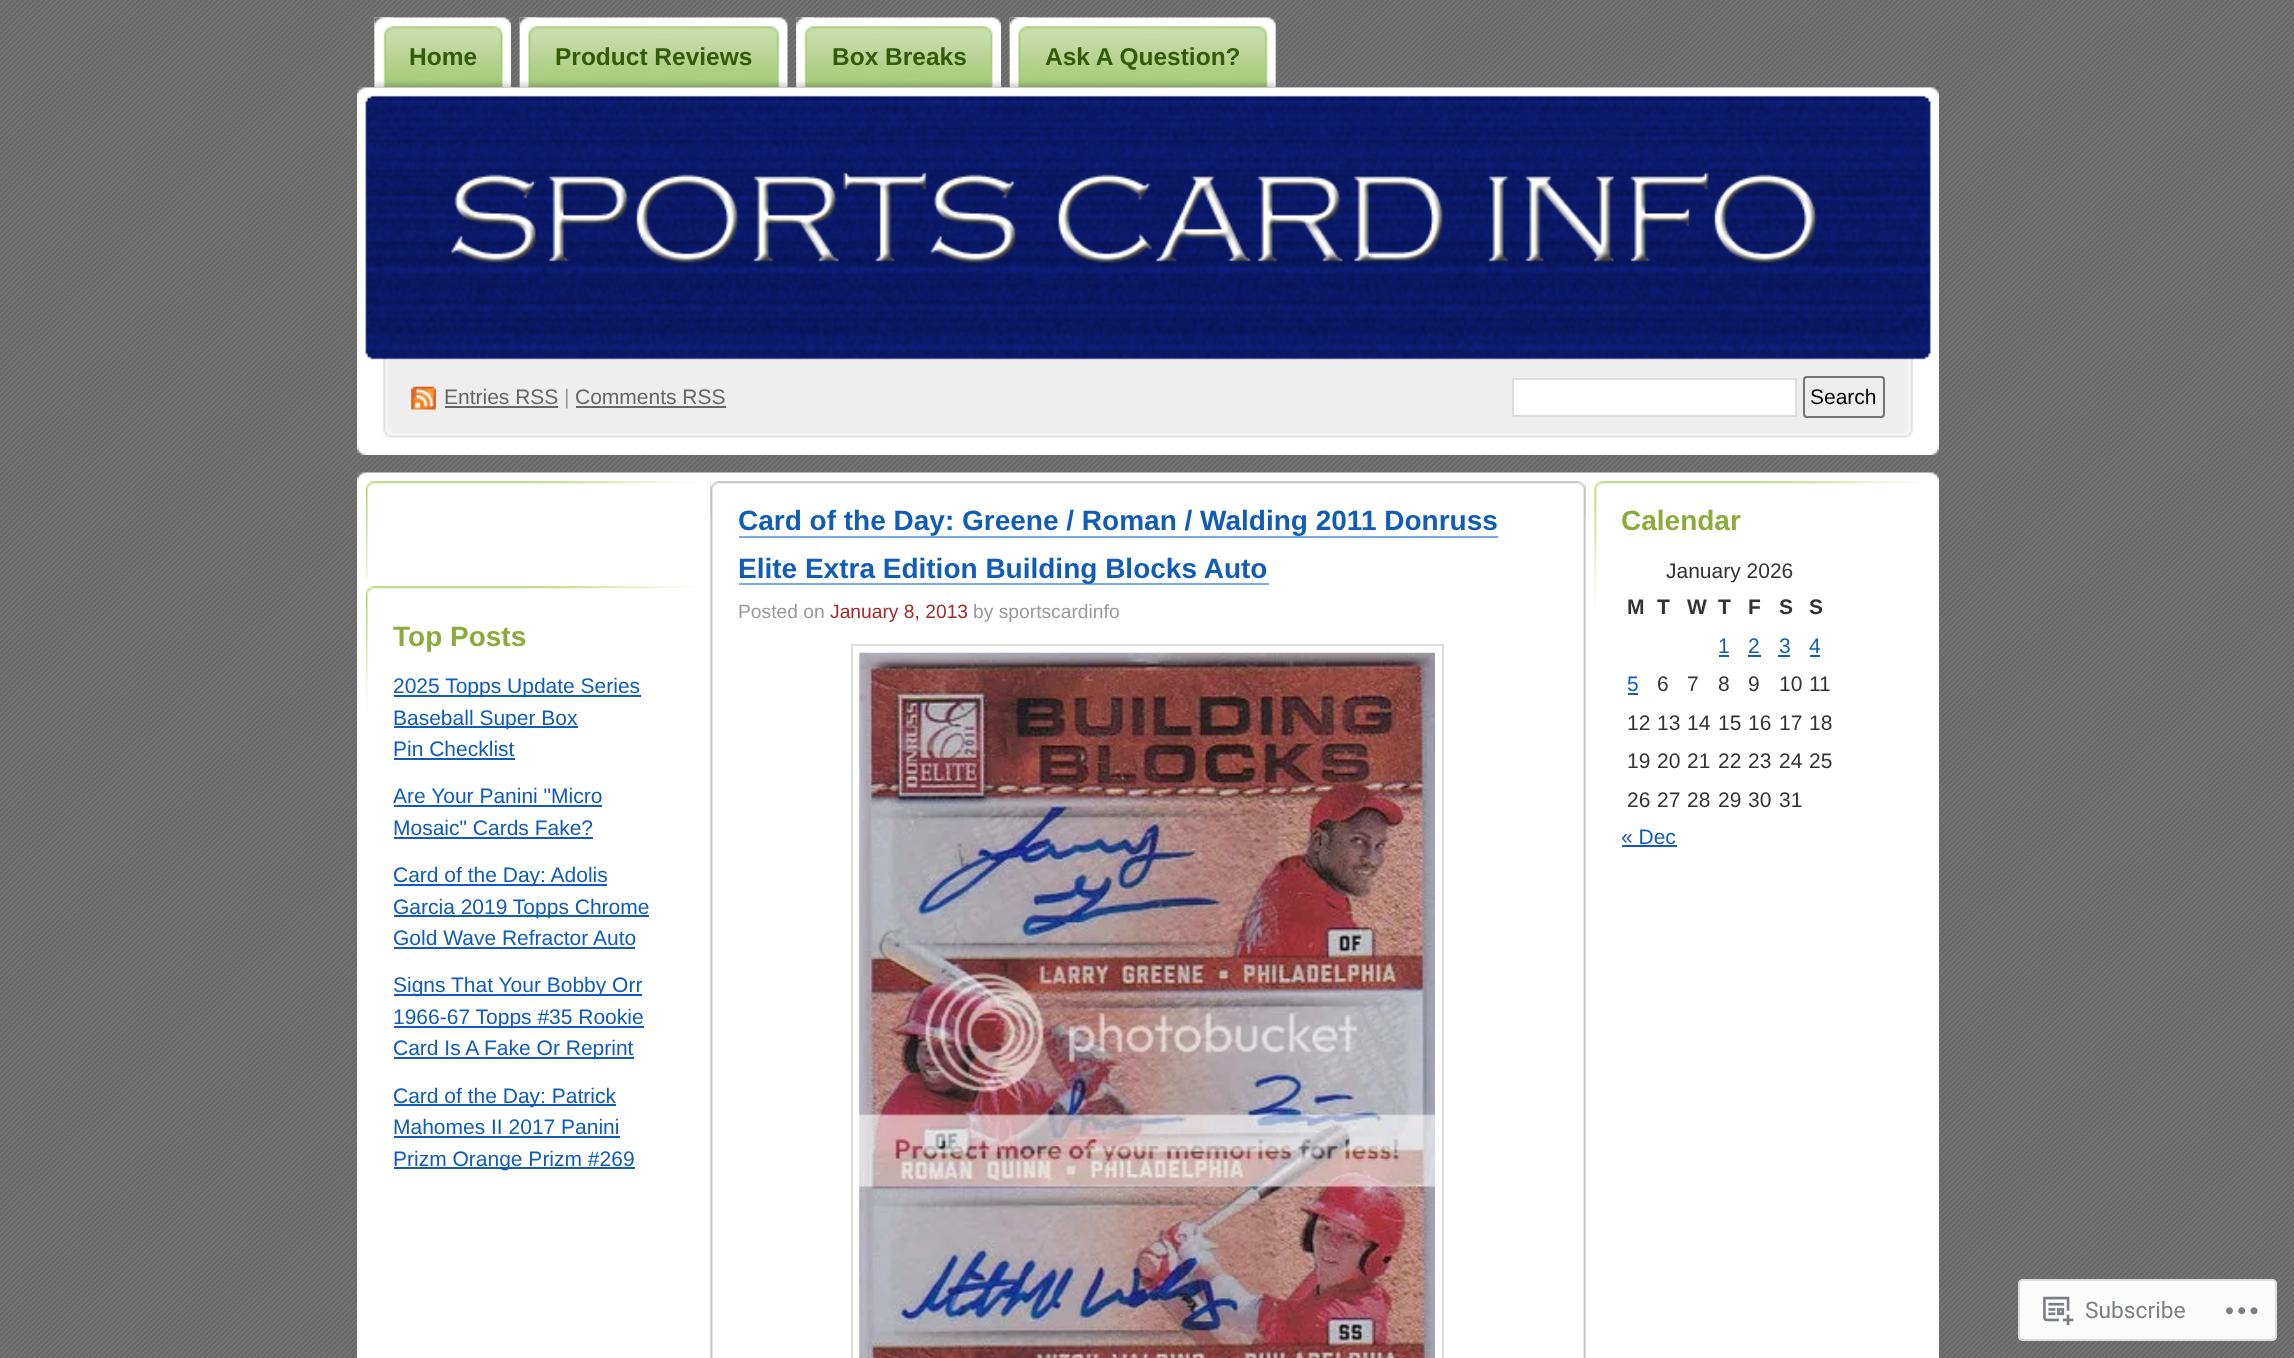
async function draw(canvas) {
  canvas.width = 2294;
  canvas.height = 1358;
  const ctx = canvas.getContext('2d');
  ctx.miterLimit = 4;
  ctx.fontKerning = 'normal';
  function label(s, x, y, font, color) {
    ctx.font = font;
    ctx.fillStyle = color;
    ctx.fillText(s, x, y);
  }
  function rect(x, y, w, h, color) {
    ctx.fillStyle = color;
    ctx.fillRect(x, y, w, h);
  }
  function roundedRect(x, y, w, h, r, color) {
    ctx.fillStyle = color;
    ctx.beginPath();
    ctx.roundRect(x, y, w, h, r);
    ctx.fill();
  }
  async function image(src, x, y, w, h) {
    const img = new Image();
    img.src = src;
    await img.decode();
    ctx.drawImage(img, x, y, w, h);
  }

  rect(0, 0, 2294, 1358, '#fff');
  await image('assets/img1.png', 0, 0, 2294, 1358);
  await image('assets/img2.png', 374, 17, 137, 71);
  await image('assets/img3.png', 374, 17, 20, 71);
  label('Home', 409, 65, 'bold 24.5px Liberation Sans', '#325b0a');
  await image('assets/img4.png', 519, 17, 269, 71);
  await image('assets/img5.png', 519, 17, 19, 71);
  label('Product Reviews', 555, 65, 'bold 24.5px Liberation Sans', '#325b0a');
  await image('assets/img6.png', 796, 17, 205, 71);
  await image('assets/img7.png', 796, 17, 18, 71);
  label('Box Breaks', 832, 65, 'bold 24.5px Liberation Sans', '#325b0a');
  await image('assets/img8.png', 1009, 17, 267, 71);
  await image('assets/img9.png', 1009, 17, 19, 71);
  label('Ask A Question?', 1045, 65, 'bold 24.5px Liberation Sans', '#325b0a');
  await image('assets/img10.png', 357, 87, 1582, 273);
  await image('assets/img11.png', 357, 87, 1582, 368);
  await image('assets/img12.png', 411, 386, 25, 24);
  label('Entries RSS', 444, 404, '21px Liberation Sans', '#666');
  rect(445, 406, 113, 2, '#666');
  label('|', 564, 404, '21px Liberation Sans', '#999');
  label('Comments RSS', 575, 404, '21px Liberation Sans', '#666');
  rect(576, 406, 150, 2, '#666');
  ctx.fillStyle = '#fff';
  ctx.beginPath();
  ctx.rect(1513, 379, 283, 37);
  ctx.fill();
  ctx.strokeStyle = '#ddd';
  ctx.lineWidth = 2;
  ctx.stroke();
  ctx.beginPath();
  ctx.roundRect(1804, 377, 80, 40, 3);
  ctx.strokeStyle = '#767676';
  ctx.stroke();
  label('Search', 1810, 404, '21px Liberation Sans', '#000');
  rect(357, 481, 1582, 877, '#fff');
  await image('assets/img13.png', 357, 472, 1582, 9);
  await image('assets/img14.png', 365, 481, 329, 97);
  await image('assets/img15.png', 365, 586, 329, 127);
  label('Top Posts', 393, 646, 'bold 28px Liberation Sans', '#8dab3b');
  rect(394, 695, 247, 2, '#105cb6');
  label('2025 Topps Update Series', 393, 693, '21px Liberation Sans', '#105cb6');
  rect(394, 726, 184, 2, '#105cb6');
  label('Baseball Super Box', 393, 725, '21px Liberation Sans', '#105cb6');
  label('Pin Checklist', 393, 756, '21px Liberation Sans', '#105cb6');
  rect(394, 758, 121, 2, '#105cb6');
  label('Are Your Panini "Micro', 393, 803, '21px Liberation Sans', '#105cb6');
  rect(394, 805, 208, 2, '#105cb6');
  label('Mosaic" Cards Fake?', 393, 835, '21px Liberation Sans', '#105cb6');
  rect(394, 837, 199, 2, '#105cb6');
  rect(394, 884, 213, 2, '#105cb6');
  label('Card of the Day: Adolis', 393, 882, '21px Liberation Sans', '#105cb6');
  rect(394, 915, 255, 2, '#105cb6');
  label('Garcia 2019 Topps Chrome', 393, 914, '21px Liberation Sans', '#105cb6');
  label('Gold Wave Refractor Auto', 393, 945, '21px Liberation Sans', '#105cb6');
  rect(394, 947, 241, 2, '#105cb6');
  rect(394, 994, 248, 2, '#105cb6');
  label('Signs That Your Bobby Orr', 393, 992, '21px Liberation Sans', '#105cb6');
  rect(394, 1026, 250, 2, '#105cb6');
  label('1966-67 Topps #35 Rookie', 393, 1024, '21px Liberation Sans', '#105cb6');
  rect(394, 1057, 240, 2, '#105cb6');
  label('Card Is A Fake Or Reprint', 393, 1055, '21px Liberation Sans', '#105cb6');
  rect(394, 1104, 222, 2, '#105cb6');
  label('Card of the Day: Patrick', 393, 1103, '21px Liberation Sans', '#105cb6');
  label('Mahomes II 2017 Panini', 393, 1134, '21px Liberation Sans', '#105cb6');
  rect(394, 1136, 226, 2, '#105cb6');
  rect(394, 1167, 241, 2, '#105cb6');
  label('Prizm Orange Prizm #269', 393, 1166, '21px Liberation Sans', '#105cb6');
  await image('assets/img16.png', 710, 481, 876, 877);
  await image('assets/img17.png', 710, 481, 876, 35);
  label('Card of the Day: Greene / Roman / Walding 2011 Donruss', 738, 530, 'bold 28px Liberation Sans', '#105cb6');
  rect(739, 536, 759, 2, '#75abea');
  rect(739, 583, 530, 2, '#75abea');
  label('Elite Extra Edition Building Blocks Auto', 738, 578, 'bold 28px Liberation Sans', '#105cb6');
  label('Posted on', 738, 618, '19.25px Liberation Sans', '#999');
  label('January 8, 2013', 830, 618, '19.25px Liberation Sans', '#a12a2a');
  label('by sportscardinfo', 973, 618, '19.25px Liberation Sans', '#999');
  ctx.strokeStyle = '#ddd';
  ctx.strokeRect(852, 645, 591, 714);
  await image('assets/img18.png', 859, 652, 576, 706);
  await image('assets/img19.png', 1594, 481, 329, 126);
  label('Calendar', 1621, 530, 'bold 28px Liberation Sans', '#8dab3b');
  label('January 2026', 1666, 578, '21px Liberation Sans', '#333');
  label('M', 1627, 614, 'bold 21px Liberation Sans', '#333');
  label('T', 1657, 614, 'bold 21px Liberation Sans', '#333');
  label('W', 1687, 614, 'bold 21px Liberation Sans', '#333');
  label('T', 1718, 614, 'bold 21px Liberation Sans', '#333');
  label('F', 1748, 614, 'bold 21px Liberation Sans', '#333');
  label('S', 1779, 614, 'bold 21px Liberation Sans', '#333');
  label('S', 1809, 614, 'bold 21px Liberation Sans', '#333');
  label('1', 1718, 653, '21px Liberation Sans', '#105cb6');
  rect(1719, 655, 10, 2, '#105cb6');
  label('2', 1748, 653, '21px Liberation Sans', '#105cb6');
  rect(1748, 655, 13, 2, '#105cb6');
  label('3', 1779, 653, '21px Liberation Sans', '#105cb6');
  rect(1778, 655, 12, 2, '#105cb6');
  label('4', 1809, 653, '21px Liberation Sans', '#105cb6');
  rect(1810, 655, 10, 2, '#105cb6');
  label('5', 1627, 691, '21px Liberation Sans', '#105cb6');
  rect(1628, 693, 10, 2, '#105cb6');
  label('6', 1657, 691, '21px Liberation Sans', '#333');
  label('7', 1687, 691, '21px Liberation Sans', '#333');
  label('8', 1718, 691, '21px Liberation Sans', '#333');
  label('9', 1748, 691, '21px Liberation Sans', '#333');
  label('10', 1779, 691, '21px Liberation Sans', '#333');
  label('11', 1809, 691, '21px Liberation Sans', '#333');
  label('12', 1627, 730, '21px Liberation Sans', '#333');
  label('13', 1657, 730, '21px Liberation Sans', '#333');
  label('14', 1687, 730, '21px Liberation Sans', '#333');
  label('15', 1718, 730, '21px Liberation Sans', '#333');
  label('16', 1748, 730, '21px Liberation Sans', '#333');
  label('17', 1779, 730, '21px Liberation Sans', '#333');
  label('18', 1809, 730, '21px Liberation Sans', '#333');
  label('19', 1627, 768, '21px Liberation Sans', '#333');
  label('20', 1657, 768, '21px Liberation Sans', '#333');
  label('21', 1687, 768, '21px Liberation Sans', '#333');
  label('22', 1718, 768, '21px Liberation Sans', '#333');
  label('23', 1748, 768, '21px Liberation Sans', '#333');
  label('24', 1779, 768, '21px Liberation Sans', '#333');
  label('25', 1809, 768, '21px Liberation Sans', '#333');
  label('26', 1627, 807, '21px Liberation Sans', '#333');
  label('27', 1657, 807, '21px Liberation Sans', '#333');
  label('28', 1687, 807, '21px Liberation Sans', '#333');
  label('29', 1718, 807, '21px Liberation Sans', '#333');
  label('30', 1748, 807, '21px Liberation Sans', '#333');
  label('31', 1779, 807, '21px Liberation Sans', '#333');
  label('« Dec', 1621, 844, '21px Liberation Sans', '#105cb6');
  rect(1622, 845, 55, 2, '#105cb6');
  roundedRect(2018, 1279, 259, 62, 5, '#fffffffa');
  ctx.beginPath();
  ctx.roundRect(2019, 1280, 257, 60, 4);
  ctx.strokeStyle = '#dcdcdefa';
  ctx.stroke();
  await image('assets/img20.png', 2043, 1296, 31, 30);
  label('Subscribe', 2085, 1318, '22.75px Roboto', '#7b7f84');
  await image('assets/img21.png', 2226, 1307, 32, 8);
}

draw(document.querySelector('canvas'));
